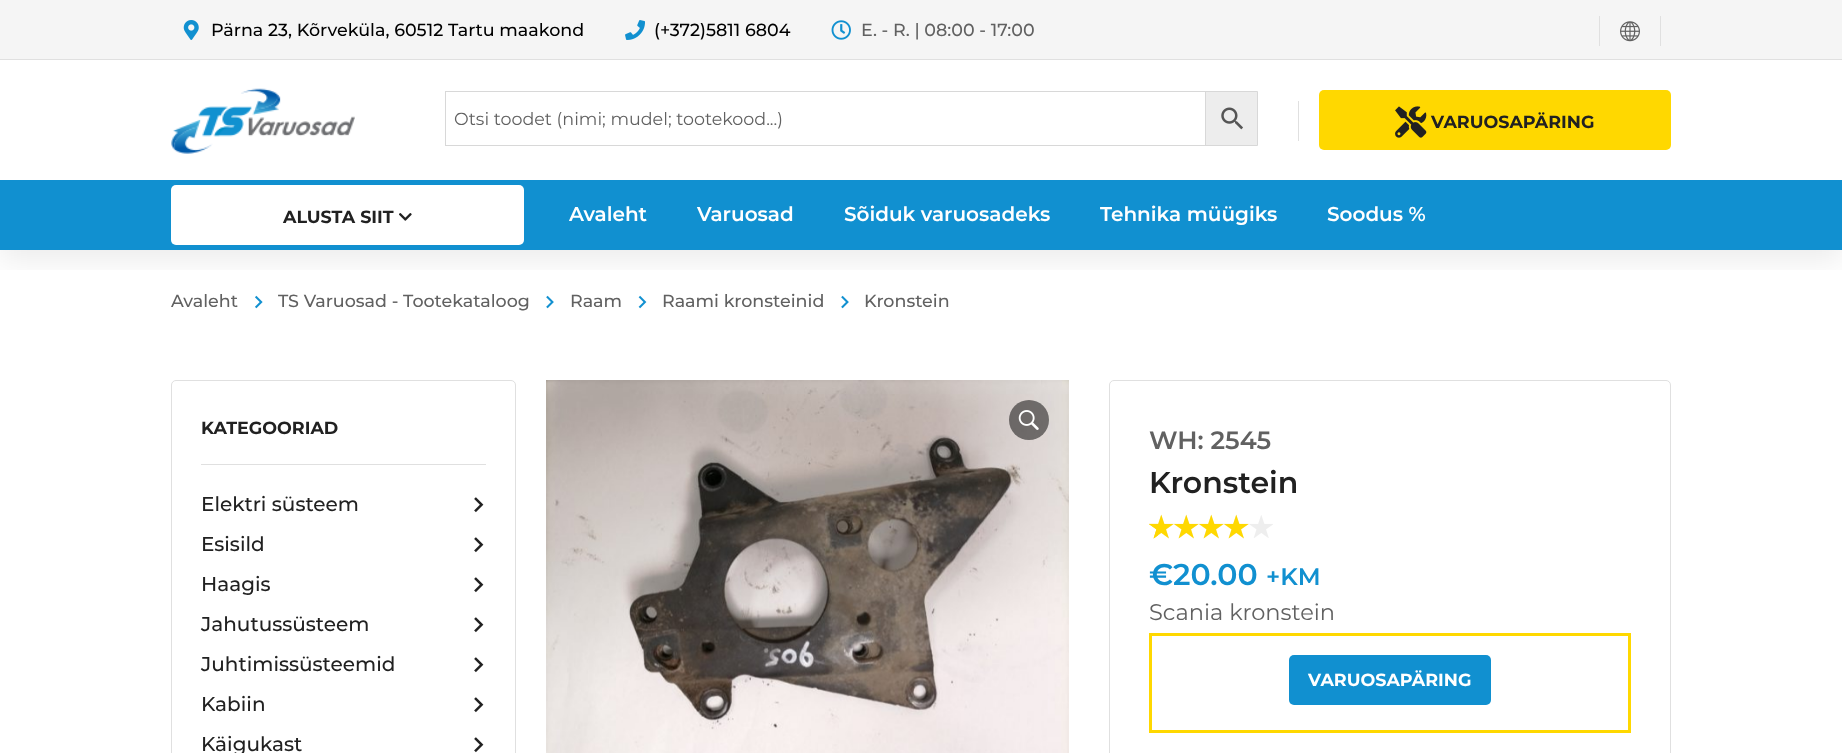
async function draw(canvas) {
  canvas.width = 1842;
  canvas.height = 753;
  const ctx = canvas.getContext('2d');
  ctx.miterLimit = 4;
  ctx.fontKerning = 'normal';
  function label(s, x, y, font, color) {
    ctx.font = font;
    ctx.fillStyle = color;
    ctx.fillText(s, x, y);
  }
  function rect(x, y, w, h, color) {
    ctx.fillStyle = color;
    ctx.fillRect(x, y, w, h);
  }
  function roundedRect(x, y, w, h, r, color) {
    ctx.fillStyle = color;
    ctx.beginPath();
    ctx.roundRect(x, y, w, h, r);
    ctx.fill();
  }
  async function image(src, x, y, w, h) {
    const img = new Image();
    img.src = src;
    await img.decode();
    ctx.drawImage(img, x, y, w, h);
  }

  rect(0, 0, 1842, 753, '#fff');
  await image('assets/img9.png', 255, 295, 8, 14);
  await image('assets/img10.png', 546, 295, 8, 14);
  await image('assets/img11.png', 638, 295, 9, 14);
  await image('assets/img10.png', 841, 295, 8, 14);
  ctx.save();
  ctx.beginPath();
  ctx.rect(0, 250, 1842, 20);
  ctx.clip();
  ctx.fillStyle = '#00000014';
  ctx.filter = 'blur(15px)';
  ctx.beginPath();
  ctx.rect(0, 10, 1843, 250);
  ctx.fill();
  ctx.filter = 'none';
  ctx.restore();
  rect(0, 0, 1842, 59, '#f5f5f5');
  rect(0, 59, 1842, 1, '#e0e0e0');
  await image('assets/img1.png', 183, 20, 16, 20);
  label('Pärna 23, Kõrveküla, 60512 Tartu maakond', 211, 36, '500 17.5px Montserrat', '#000');
  await image('assets/img2.png', 625, 20, 20, 20);
  label('(+372)5811 6804', 654, 36, '500 17.5px Montserrat', '#000');
  await image('assets/img3.png', 831, 20, 20, 20);
  label('E. - R. | 08:00 - 17:00', 861, 36, '500 17.5px Montserrat', '#616161');
  rect(1599, 16, 1, 30, '#e0e0e0');
  await image('assets/img4.png', 1620, 21, 20, 21);
  rect(1660, 16, 1, 30, '#e0e0e0');
  await image('assets/img5.png', 171, 88, 184, 66);
  ctx.fillStyle = '#ededed';
  ctx.beginPath();
  ctx.rect(1205.5, 91.5, 52, 54);
  ctx.fill();
  ctx.strokeStyle = '#d8d8d8';
  ctx.stroke();
  ctx.strokeRect(445.5, 91.5, 760, 54);
  label('Otsi toodet (nimi; mudel; tootekood...)', 454, 125, '17.5px Montserrat', '#616161');
  await image('assets/img6.png', 1221, 107, 22, 23);
  rect(1298, 101, 1, 40, '#e0e0e0');
  roundedRect(1319, 90, 352, 60, 5, '#ffd800');
  await image('assets/img7.png', 1395, 106, 32, 32);
  label('VARUOSAPÄRING', 1431, 128, 'bold 17.5px Montserrat', '#212121');
  rect(0, 180, 1842, 70, '#1190d0');
  roundedRect(171, 185, 353, 60, 5, '#fff');
  label('ALUSTA SIIT', 283, 223, 'bold 17.5px Montserrat', '#212121');
  await image('assets/img8.png', 399, 213, 13, 8);
  label('Avaleht', 569, 221, '600 20px Montserrat', '#fff');
  label('Varuosad', 697, 221, '600 20px Montserrat', '#fff');
  label('Sõiduk varuosadeks', 844, 221, '600 20px Montserrat', '#fff');
  label('Tehnika müügiks', 1100, 221, '600 20px Montserrat', '#fff');
  label('Soodus %', 1327, 221, '600 20px Montserrat', '#fff');
  label('Avaleht', 171, 307, '500 17.5px Montserrat', '#616161');
  label('TS Varuosad - Tootekataloog', 278, 307, '500 17.5px Montserrat', '#616161');
  label('Raam', 570, 307, '500 17.5px Montserrat', '#616161');
  label('Raami kronsteinid', 662, 307, '500 17.5px Montserrat', '#616161');
  label('Kronstein', 864, 307, '500 17.5px Montserrat', '#616161');
  ctx.beginPath();
  ctx.roundRect(171.5, 380.5, 344, 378, 4.5);
  ctx.strokeStyle = '#e0e0e0';
  ctx.stroke();
  label('KATEGOORIAD', 201, 434, 'bold 17.5px Montserrat', '#212121');
  rect(201, 464, 285, 1, '#e0e0e0');
  label('Elektri süsteem', 201, 511, '500 20px Montserrat', '#212121');
  await image('assets/img12.png', 474, 497, 10, 16);
  label('Esisild', 201, 551, '500 20px Montserrat', '#212121');
  await image('assets/img12.png', 474, 537, 10, 16);
  label('Haagis', 201, 591, '500 20px Montserrat', '#212121');
  await image('assets/img12.png', 474, 577, 10, 16);
  label('Jahutussüsteem', 201, 631, '500 20px Montserrat', '#212121');
  await image('assets/img12.png', 474, 617, 10, 16);
  label('Juhtimissüsteemid', 201, 671, '500 20px Montserrat', '#212121');
  await image('assets/img12.png', 474, 657, 10, 16);
  label('Kabiin', 201, 711, '500 20px Montserrat', '#212121');
  await image('assets/img12.png', 474, 697, 10, 16);
  label('Käigukast', 201, 751, '500 20px Montserrat', '#212121');
  await image('assets/img12.png', 474, 737, 10, 16);
  await image('assets/img13.png', 546, 380, 523, 373);
  ctx.fillStyle = '#00000080';
  ctx.beginPath();
  ctx.arc(1029, 420, 20, 0, 2 * Math.PI);
  ctx.fill();
  await image('assets/img14.png', 1018, 410, 21, 20);
  ctx.beginPath();
  ctx.roundRect(1109.5, 380.5, 561, 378, 4.5);
  ctx.stroke();
  label('WH: 2545', 1149, 449, '600 25px Montserrat', '#616161');
  label('Kronstein', 1149, 493, '600 30px Montserrat', '#212121');
  await image('assets/img17.png', 1149, 515, 124, 23);
  await image('assets/img15.png', 1149, 514, 100, 25);
  await image('assets/img16.png', 1149, 523, 9, 16);
  label('€20.00', 1149, 585, '600 30px Montserrat', '#1190d0');
  label('+KM', 1266, 585, '600 24px Montserrat', '#1190d0');
  label('Scania kronstein', 1149, 620, '22.5px Montserrat', '#616161');
  ctx.strokeStyle = '#ffd800';
  ctx.lineWidth = 3;
  ctx.strokeRect(1150.5, 634.5, 479, 97);
  roundedRect(1289, 655, 202, 50, 5, '#1190d0');
  label('VARUOSAPÄRING', 1308, 686, 'bold 17.5px Montserrat', '#fff');
}

draw(document.querySelector('canvas'));
